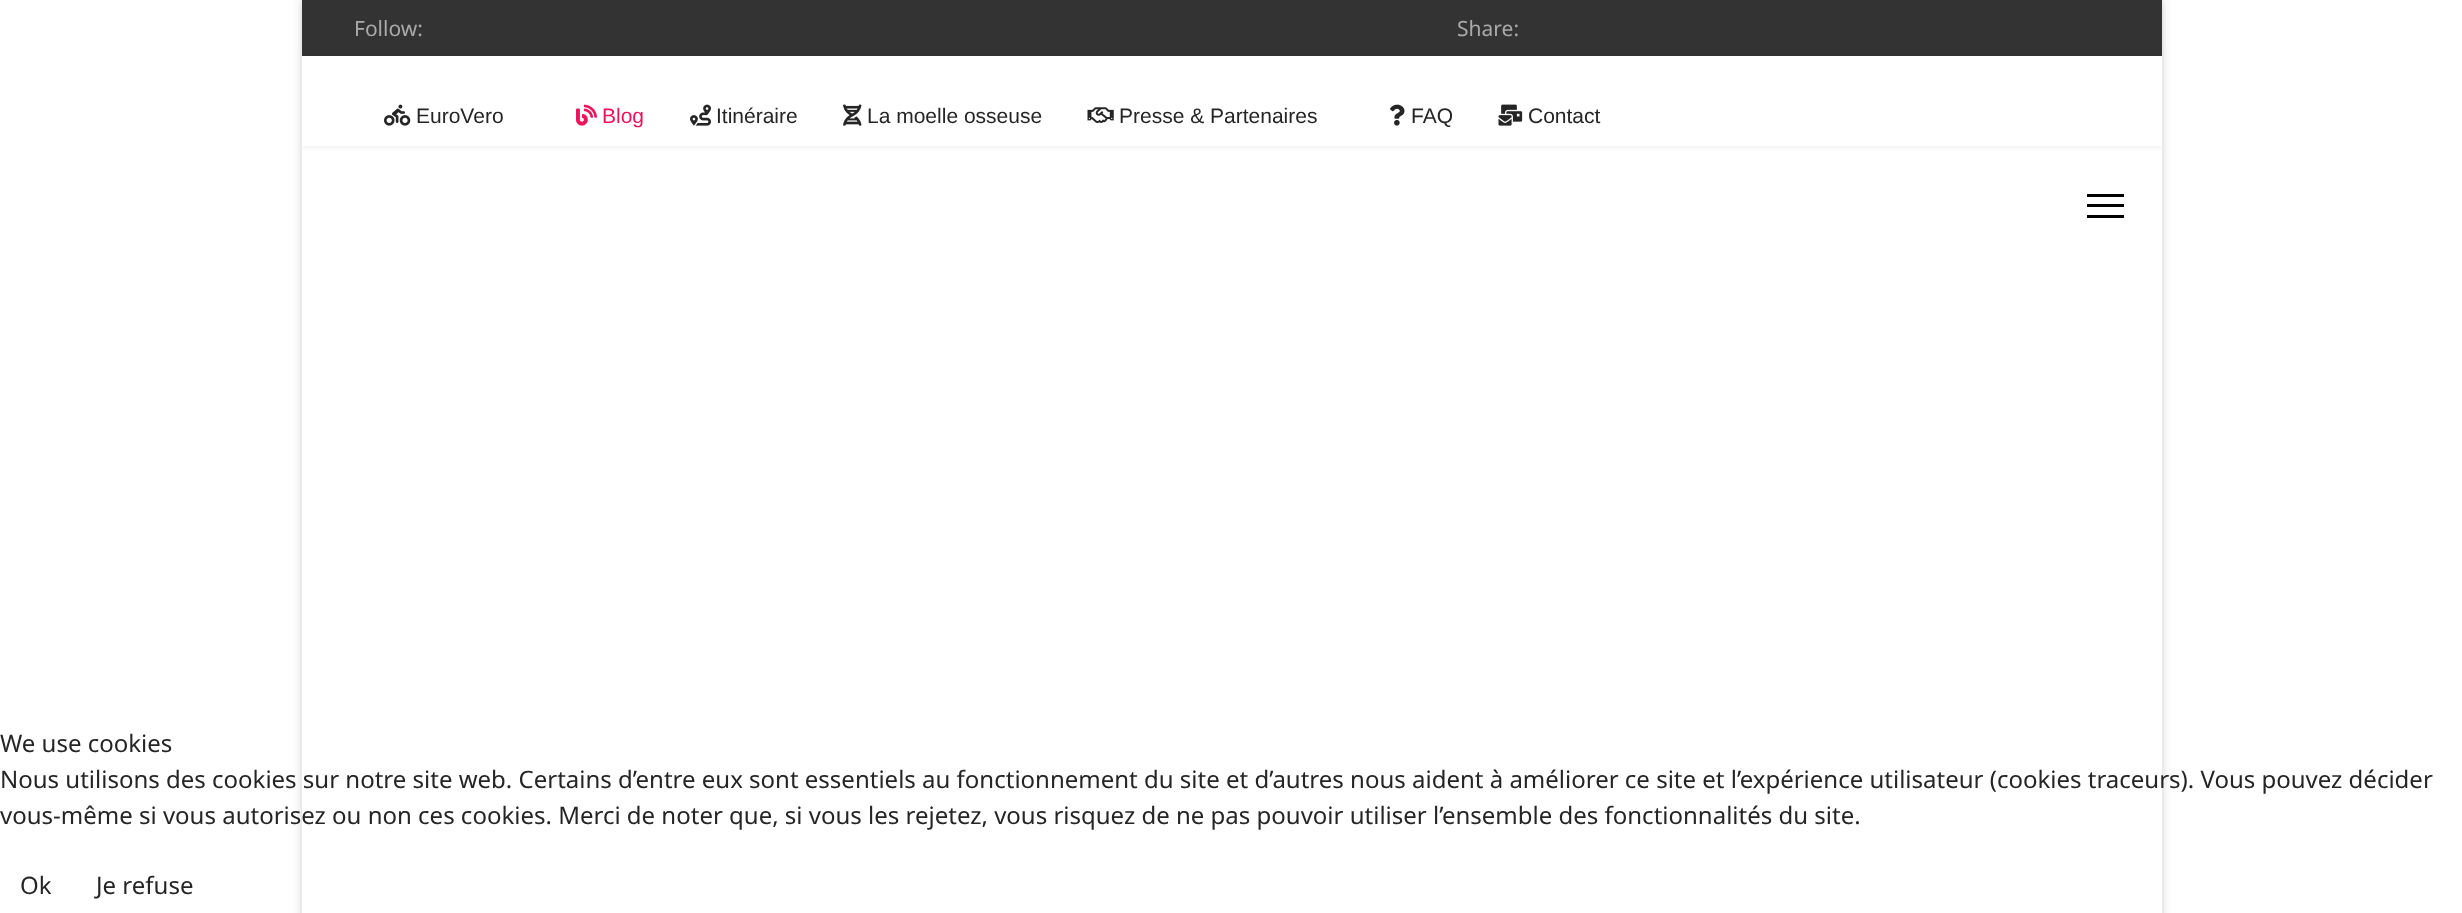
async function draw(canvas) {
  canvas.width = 2462;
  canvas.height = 913;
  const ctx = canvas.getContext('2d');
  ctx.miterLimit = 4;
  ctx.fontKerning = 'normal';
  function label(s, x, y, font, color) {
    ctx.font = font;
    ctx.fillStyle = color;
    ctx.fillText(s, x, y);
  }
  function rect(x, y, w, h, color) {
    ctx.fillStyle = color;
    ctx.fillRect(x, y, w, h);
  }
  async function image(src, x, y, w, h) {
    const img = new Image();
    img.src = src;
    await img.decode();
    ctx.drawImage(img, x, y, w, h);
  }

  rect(0, 0, 2462, 913, '#fff');
  ctx.fillStyle = '#00000033';
  ctx.filter = 'blur(4px)';
  ctx.beginPath();
  ctx.rect(302, 0, 1860, 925);
  ctx.fill();
  ctx.filter = 'none';
  rect(302, 146, 1860, 767, '#fff');
  rect(302, 0, 1860, 56, '#333');
  label('Follow:', 354, 36, '21px Noto Sans', '#aaa');
  label('Share:', 1457, 36, '21px Noto Sans', '#aaa');
  ctx.save();
  ctx.beginPath();
  ctx.rect(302, 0, 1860, 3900);
  ctx.clip();
  ctx.fillStyle = '#0000001a';
  ctx.filter = 'blur(3px)';
  ctx.beginPath();
  ctx.rect(302, 56, 1860, 90);
  ctx.fill();
  ctx.filter = 'none';
  ctx.restore();
  rect(302, 56, 1860, 90, '#fff');
  await image('assets/img1.png', 384, 104, 27, 22);
  label('EuroVero', 416, 123, '21px Liberation Sans', '#252525');
  await image('assets/img2.png', 576, 104, 21, 22);
  label('Blog', 602, 123, '21px Liberation Sans', '#ed145b');
  await image('assets/img3.png', 690, 104, 21, 22);
  label('Itinéraire', 716, 123, '21px Liberation Sans', '#252525');
  await image('assets/img4.png', 843, 104, 19, 22);
  label('La moelle osseuse', 867, 123, '21px Liberation Sans', '#252525');
  await image('assets/img5.png', 1087, 107, 27, 16);
  label('Presse & Partenaires', 1119, 123, '21px Liberation Sans', '#252525');
  await image('assets/img6.png', 1390, 104, 15, 22);
  label('FAQ', 1411, 123, '21px Liberation Sans', '#252525');
  await image('assets/img7.png', 1498, 104, 25, 22);
  label('Contact', 1528, 123, '21px Liberation Sans', '#252525');
  rect(2087, 194, 37, 3, '#000');
  rect(2087, 204, 37, 3, '#000');
  rect(2087, 215, 37, 3, '#000');
  label('We use cookies', 0, 752, '24px Noto Sans', '#252525');
  label('Nous utilisons des cookies sur notre site web. Certains d’entre eux sont essentiels au fonctionnement du site et d’autres nous aident à améliorer ce site et l’expérience utilisateur (cookies traceurs). Vous pouvez décider', 0, 788, '24px Noto Sans', '#252525');
  label('vous-même si vous autorisez ou non ces cookies. Merci de noter que, si vous les rejetez, vous risquez de ne pas pouvoir utiliser l’ensemble des fonctionnalités du site.', 0, 824, '24px Noto Sans', '#252525');
  label('Ok', 20, 894, '24px Noto Sans', '#252525');
  label('Je refuse', 96, 894, '24px Noto Sans', '#252525');
}

draw(document.querySelector('canvas'));
